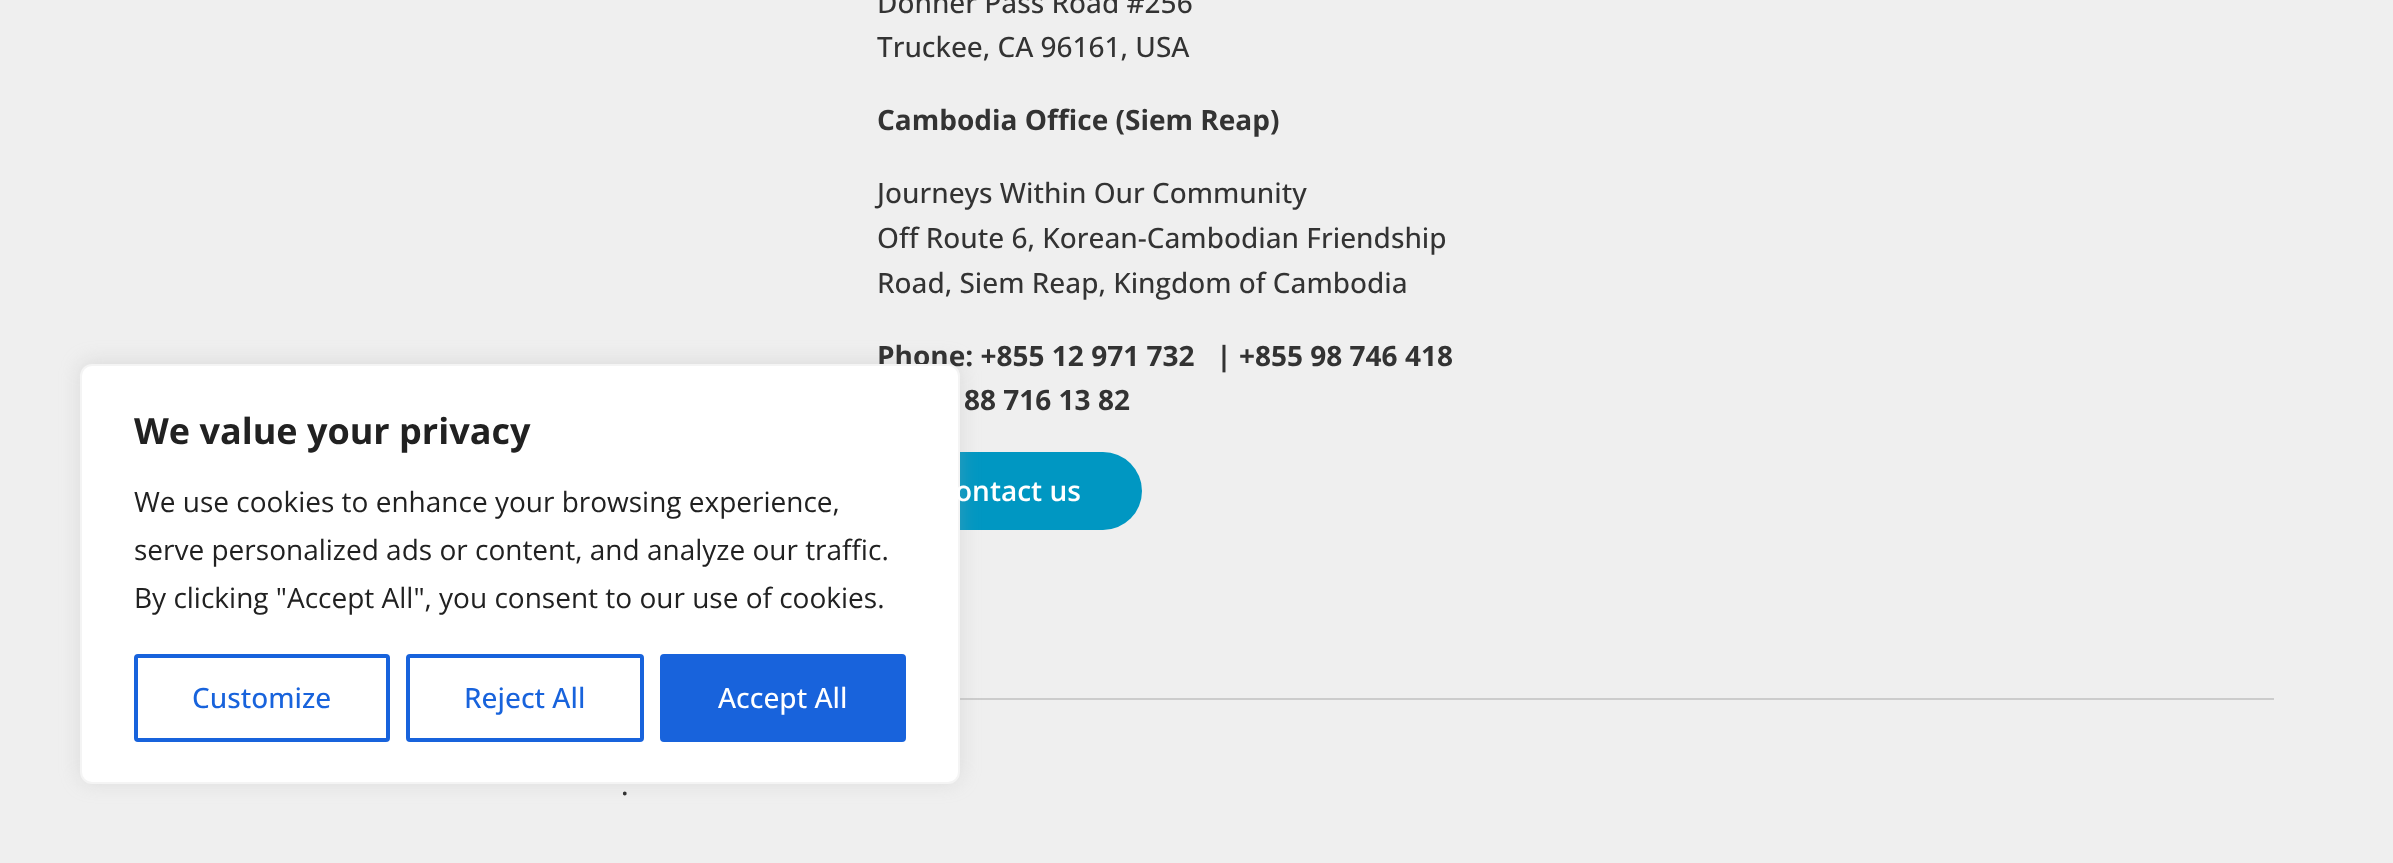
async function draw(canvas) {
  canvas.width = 2393;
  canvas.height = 863;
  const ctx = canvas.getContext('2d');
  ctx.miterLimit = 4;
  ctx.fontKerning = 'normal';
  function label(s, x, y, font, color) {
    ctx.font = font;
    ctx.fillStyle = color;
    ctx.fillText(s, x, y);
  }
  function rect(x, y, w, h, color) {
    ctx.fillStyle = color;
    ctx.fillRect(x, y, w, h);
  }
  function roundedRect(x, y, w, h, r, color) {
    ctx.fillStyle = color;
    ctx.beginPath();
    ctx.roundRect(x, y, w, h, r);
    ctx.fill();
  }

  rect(0, 0, 2393, 863, '#efefef');
  roundedRect(878, 452, 264, 78, 39, '#0097c2');
  rect(960, 698, 1314, 2, '#ccc');
  ctx.fillStyle = '#acabab4d';
  ctx.filter = 'blur(10px)';
  ctx.beginPath();
  ctx.roundRect(80, 362, 880, 420, 12);
  ctx.fill();
  ctx.filter = 'none';
  label('Phone: +855 12 971 732   | +855 98 746 418', 877, 366, 'bold 28px Open Sans', '#333');
  ctx.fillStyle = '#fff';
  ctx.beginPath();
  ctx.roundRect(81, 365, 878, 418, 11);
  ctx.fill();
  ctx.strokeStyle = '#f4f4f4';
  ctx.lineWidth = 2;
  ctx.stroke();
  label('We value your privacy', 134, 444, 'bold 36px Open Sans', '#212121');
  label('We use cookies to enhance your browsing experience,', 134, 512, '28px Open Sans', '#212121');
  label('serve personalized ads or content, and analyze our traffic.', 134, 560, '28px Open Sans', '#212121');
  label('By clicking "Accept All", you consent to our use of cookies.', 134, 608, '28px Open Sans', '#212121');
  ctx.beginPath();
  ctx.roundRect(136, 656, 252, 84, 2);
  ctx.strokeStyle = '#1863dc';
  ctx.lineWidth = 4;
  ctx.stroke();
  label('Customize', 192, 708, '500 28px Open Sans', '#1863dc');
  ctx.beginPath();
  ctx.roundRect(408, 656, 234, 84, 2);
  ctx.stroke();
  label('Reject All', 464, 708, '500 28px Open Sans', '#1863dc');
  ctx.beginPath();
  ctx.roundRect(662, 656, 242, 84, 2);
  ctx.fill();
  ctx.stroke();
  label('Accept All', 718, 708, '500 28px Open Sans', '#fff');
  label('Donner Pass Road #256', 877, 13, '500 28px Open Sans', '#333');
  label('Truckee, CA 96161, USA', 877, 57, '500 28px Open Sans', '#333');
  label('Cambodia Office (Siem Reap)', 877, 130, 'bold 28px Open Sans', '#333');
  label('Journeys Within Our Community', 877, 203, '500 28px Open Sans', '#333');
  label('Off Route 6, Korean-Cambodian Friendship', 877, 248, '500 28px Open Sans', '#333');
  label('Road, Siem Reap, Kingdom of Cambodia', 877, 293, '500 28px Open Sans', '#333');
  label('88 716 13 82', 964, 410, 'bold 28px Open Sans', '#333');
  label('ontact us', 955, 501, '600 28px Open Sans', '#fff');
  label('.', 621, 795, '500 28px Open Sans', '#333');
}

draw(document.querySelector('canvas'));
